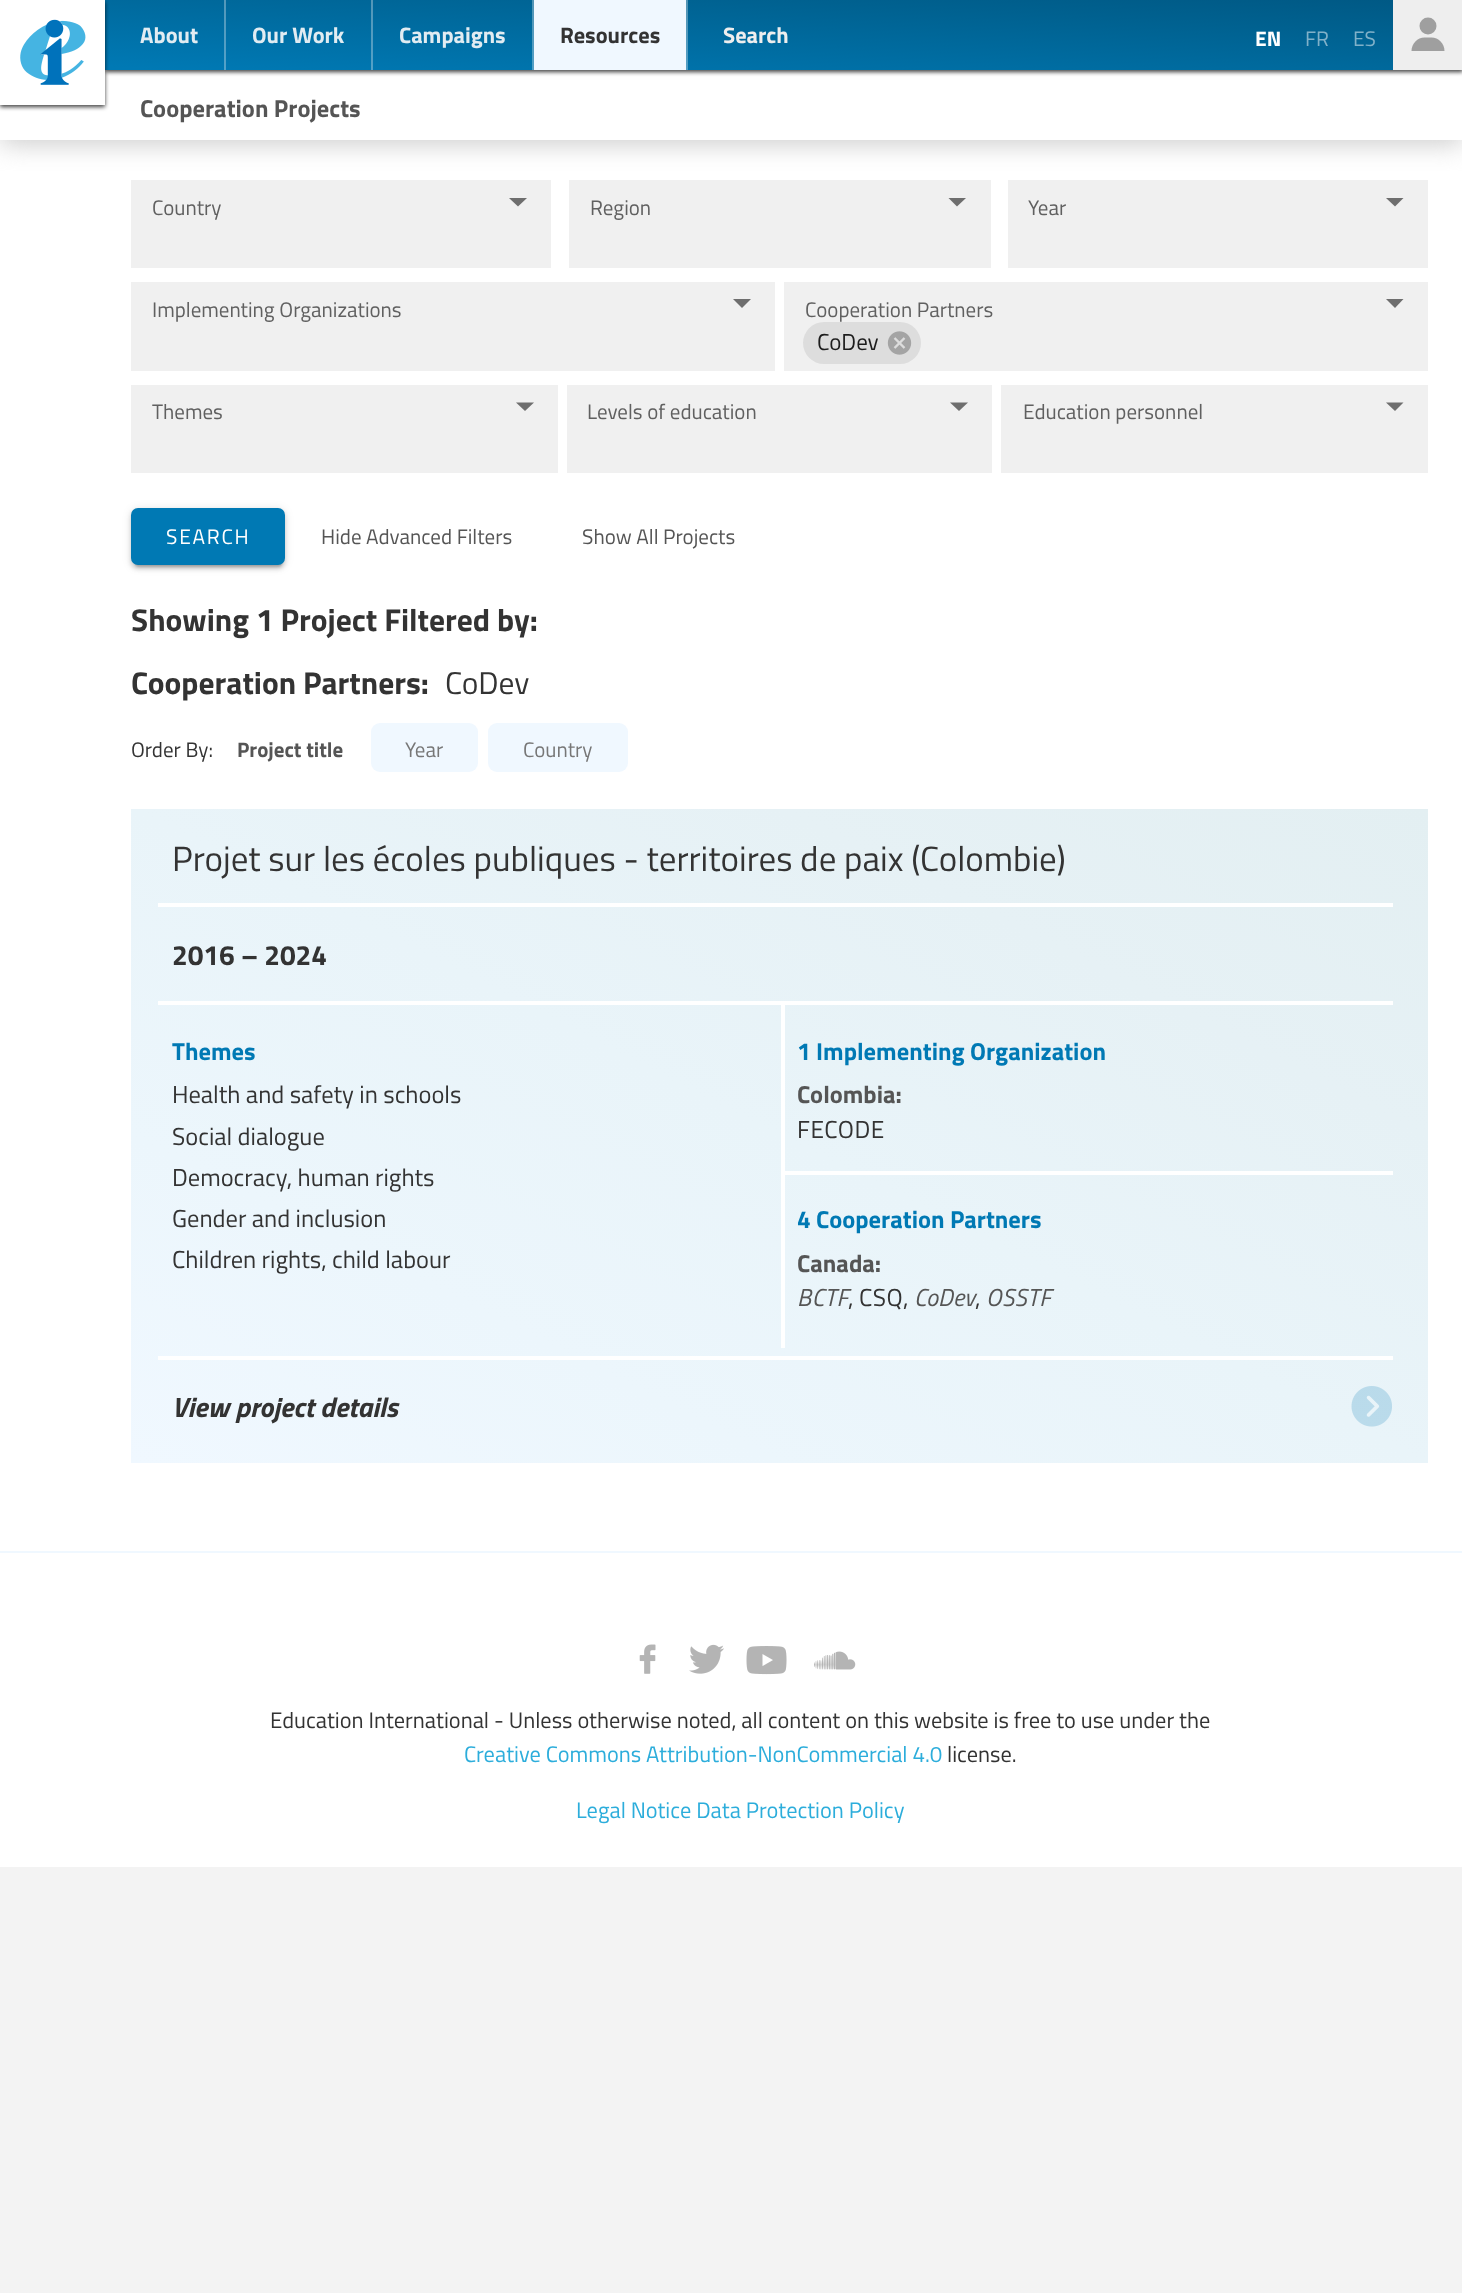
async function draw(canvas) {
  canvas.width = 1462;
  canvas.height = 2293;
  const ctx = canvas.getContext('2d');
  ctx.miterLimit = 4;
  ctx.fontKerning = 'normal';
  function label(s, x, y, font, color) {
    ctx.font = font;
    ctx.fillStyle = color;
    ctx.fillText(s, x, y);
  }
  function rect(x, y, w, h, color) {
    ctx.fillStyle = color;
    ctx.fillRect(x, y, w, h);
  }
  function roundedRect(x, y, w, h, r, color) {
    ctx.fillStyle = color;
    ctx.beginPath();
    ctx.roundRect(x, y, w, h, r);
    ctx.fill();
  }
  async function image(src, x, y, w, h) {
    const img = new Image();
    img.src = src;
    await img.decode();
    ctx.drawImage(img, x, y, w, h);
  }
  let gradient, path;

  rect(0, 0, 1462, 2293, '#f3f3f3');
  rect(0, 70, 1462, 1797, '#fff');
  ctx.fillStyle = '#000000bf';
  ctx.filter = 'blur(2px)';
  ctx.beginPath();
  ctx.rect(105, 2, 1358, 70);
  ctx.fill();
  ctx.filter = 'none';
  rect(131, 180, 420, 88, '#f0f0f0');
  rect(569, 180, 422, 88, '#f0f0f0');
  rect(1008, 180, 420, 88, '#f0f0f0');
  ctx.save();
  ctx.beginPath();
  ctx.rect(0, 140, 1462, 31);
  ctx.clip();
  ctx.fillStyle = '#ccc';
  ctx.filter = 'blur(13px)';
  ctx.beginPath();
  ctx.rect(0, 74, 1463, 70);
  ctx.fill();
  ctx.filter = 'none';
  ctx.restore();
  gradient = ctx.createLinearGradient(780, 105, 788, -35);
  gradient.addColorStop(0, '#0079b4');
  gradient.addColorStop(0.25, '#0071a8');
  gradient.addColorStop(0.5, '#00699c');
  gradient.addColorStop(0.75, '#006190');
  gradient.addColorStop(1, '#005985');
  ctx.fillStyle = gradient;
  ctx.fillRect(105, 0, 1288, 70);
  ctx.save();
  path = new Path2D('M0 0H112V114H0ZM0 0H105V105H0Z');
  ctx.clip(path, 'evenodd');
  ctx.fillStyle = '#000000bf';
  ctx.filter = 'blur(2px)';
  ctx.beginPath();
  ctx.rect(0, 2, 105, 105);
  ctx.fill();
  ctx.filter = 'none';
  ctx.restore();
  await image('assets/img1.png', 0, 0, 105, 85);
  rect(224, 0, 2, 70, '#fafafa54');
  label('About', 140, 43, 'bold 22.4px Titillium Web', '#e1ecf2');
  rect(371, 0, 2, 70, '#fafafa54');
  label('Our Work', 252, 43, 'bold 22.4px Titillium Web', '#e1ecf2');
  rect(532, 0, 2, 70, '#fafafa54');
  label('Campaigns', 399, 43, 'bold 22.4px Titillium Web', '#e1ecf2');
  rect(686, 0, 2, 70, '#fafafa54');
  rect(534, 0, 152, 70, '#f0f8ff');
  label('Resources', 560, 43, 'bold 22.4px Titillium Web', '#333');
  label('Search', 723, 43, 'bold 22.4px Titillium Web', '#eee');
  label('EN', 1255, 46, 'bold 21px Titillium Web', '#fff');
  label('FR', 1305, 46, '21px Titillium Web', '#80b1c9');
  label('ES', 1353, 46, '21px Titillium Web', '#80b1c9');
  rect(1393, 0, 69, 70, '#eee');
  ctx.fillStyle = '#9f9f9f';
  ctx.beginPath();
  ctx.arc(1428, 26, 8.5, 0, 2 * Math.PI);
  ctx.fill();
  path = new Path2D('M1431.5 37.5H1424.5C1417.5 37.5 1411.5 43.5 1411.5 51H1444.5C1444.5 43.5 1438.5 37.5 1431.5 37.5Z');
  ctx.fill(path);
  label('Cooperation Projects', 140, 117, 'bold 24.5px Titillium Web', '#555');
  ctx.fillStyle = '#6e6e6e';
  path = new Path2D('M509 198L518 206.5L527 198Z');
  ctx.fill(path);
  label('Country', 152, 215, '21px Titillium Web', '#606060');
  ctx.fillStyle = '#6e6e6e';
  path = new Path2D('M948.5 198L957 206.5L966 198Z');
  ctx.fill(path);
  label('Region', 590, 215, '21px Titillium Web', '#606060');
  ctx.fillStyle = '#6e6e6e';
  path = new Path2D('M1386 198L1395 206.5L1403.5 198Z');
  ctx.fill(path);
  label('Year', 1028, 215, '21px Titillium Web', '#606060');
  rect(131, 282, 644, 89, '#f0f0f0');
  ctx.fillStyle = '#6e6e6e';
  path = new Path2D('M733 299L742 308L751 299Z');
  ctx.fill(path);
  label('Implementing Organizations', 152, 317, '21px Titillium Web', '#606060');
  rect(784, 282, 644, 89, '#f0f0f0');
  label('Cooperation Partners', 805, 317, '21px Titillium Web', '#606060');
  ctx.fillStyle = '#6e6e6e';
  path = new Path2D('M1386 299L1395 308L1403.5 299Z');
  ctx.fill(path);
  roundedRect(803, 322, 118, 42, 21, '#ddd');
  label('CoDev', 817, 350, '23px Titillium Web', '#1d1d1d');
  await image('assets/img2.png', 887, 331, 25, 24);
  rect(131, 385, 427, 88, '#f0f0f0');
  ctx.fillStyle = '#6e6e6e';
  path = new Path2D('M516 402.5L525 411L534 402.5Z');
  ctx.fill(path);
  label('Themes', 152, 419, '21px Titillium Web', '#606060');
  rect(567, 385, 425, 88, '#f0f0f0');
  ctx.fillStyle = '#6e6e6e';
  path = new Path2D('M950 402.5L959 411L968 402.5Z');
  ctx.fill(path);
  label('Levels of education', 587, 419, '21px Titillium Web', '#606060');
  rect(1001, 385, 427, 88, '#f0f0f0');
  ctx.fillStyle = '#6e6e6e';
  path = new Path2D('M1386 402.5L1395 411L1403.5 402.5Z');
  ctx.fill(path);
  label('Education personnel', 1023, 419, '21px Titillium Web', '#606060');
  ctx.fillStyle = '#0000001f';
  ctx.filter = 'blur(4.5px)';
  ctx.beginPath();
  ctx.roundRect(131, 509, 154, 58, 7);
  ctx.fill();
  ctx.filter = 'none';
  ctx.fillStyle = '#00000024';
  ctx.filter = 'blur(2px)';
  ctx.beginPath();
  ctx.roundRect(131, 511, 154, 58, 7);
  ctx.fill();
  ctx.filter = 'none';
  ctx.fillStyle = '#00000033';
  ctx.filter = 'blur(1px)';
  ctx.beginPath();
  ctx.roundRect(135, 516, 147, 51, 4);
  ctx.fill();
  ctx.filter = 'none';
  roundedRect(131, 508, 154, 57, 7, '#0079b4');
  ctx.letterSpacing = '1.75px';
  label('SEARCH', 166, 544, '21px Titillium Web', '#fff');
  ctx.letterSpacing = '0px';
  label('Hide Advanced Filters', 321, 544, '21px Titillium Web', '#555');
  label('Show All Projects', 582, 544, '21px Titillium Web', '#555');
  label('Showing 1 Project Filtered by:', 131, 631, 'bold 31.5px Titillium Web', '#333');
  label('Cooperation Partners:', 131, 694, 'bold 31.5px Titillium Web', '#333');
  label('CoDev', 445, 694, '31.5px Titillium Web', '#333');
  label('Order By:', 131, 757, '21px Titillium Web', '#333');
  label('Project title', 237, 757, 'bold 21px Titillium Web', '#555');
  roundedRect(371, 723, 107, 49, 9, '#f0f8ff');
  label('Year', 405, 757, '21px Titillium Web', '#777');
  roundedRect(488, 723, 140, 49, 9, '#f0f8ff');
  label('Country', 523, 757, '21px Titillium Web', '#777');
  gradient = ctx.createLinearGradient(516, 1657, 1043, 614);
  gradient.addColorStop(0, '#f0f8ff');
  gradient.addColorStop(0.25, '#ecf6fc');
  gradient.addColorStop(0.5, '#e9f4f9');
  gradient.addColorStop(0.75, '#e6f1f5');
  gradient.addColorStop(1, '#e3eff2');
  ctx.fillStyle = gradient;
  ctx.fillRect(131, 809, 1297, 654);
  rect(158, 903, 1235, 4, '#fff');
  label('Projet sur les écoles publiques - territoires de paix (Colombie)', 172, 871, '35px Titillium Web', '#333');
  rect(158, 1001, 1235, 4, '#fff');
  label('2016 – 2024', 172, 965, 'bold 28px Titillium Web', '#333');
  label('Themes', 172, 1060, 'bold 24.5px Titillium Web', '#0079b4');
  label('Health and safety in schools', 172, 1103, '24.5px Titillium Web', '#333');
  label('Social dialogue', 172, 1145, '24.5px Titillium Web', '#333');
  label('Democracy, human rights', 172, 1186, '24.5px Titillium Web', '#333');
  label('Gender and inclusion', 172, 1227, '24.5px Titillium Web', '#333');
  label('Children rights, child labour', 172, 1268, '24.5px Titillium Web', '#333');
  rect(781, 1171, 612, 4, '#fff');
  rect(781, 1005, 4, 343, '#fff');
  label('1 Implementing Organization', 797, 1060, 'bold 24.5px Titillium Web', '#0079b4');
  label('Colombia:', 797, 1103, 'bold 24.5px Titillium Web', '#555');
  ctx.letterSpacing = '0.5px';
  label('FECODE', 797, 1138, '24.5px Titillium Web', '#333');
  ctx.letterSpacing = '0px';
  label('4 Cooperation Partners', 797, 1228, 'bold 24.5px Titillium Web', '#0079b4');
  label('Canada:', 797, 1272, 'bold 24.5px Titillium Web', '#555');
  ctx.letterSpacing = '0.5px';
  label('BCTF', 797, 1306, 'italic 24.5px Titillium Web', '#555');
  label('CSQ', 859, 1306, '24.5px Titillium Web', '#333');
  ctx.letterSpacing = '0px';
  label('CoDev', 914, 1306, 'italic 24.5px Titillium Web', '#555');
  ctx.letterSpacing = '0.5px';
  label('OSSTF', 986, 1306, 'italic 24.5px Titillium Web', '#555');
  ctx.letterSpacing = '0px';
  label(',', 848, 1306, '24.5px Titillium Web', '#333');
  label(',', 903, 1306, '24.5px Titillium Web', '#333');
  label(',', 975, 1306, '24.5px Titillium Web', '#333');
  await image('assets/img3.png', 1351, 1386, 41, 41);
  rect(158, 1356, 1235, 4, '#fff');
  label('View project details', 172, 1417, 'italic bold 28px Titillium Web', '#333');
  rect(0, 1551, 1462, 2, '#f0f8ff');
  await image('assets/img4.png', 639, 1644, 17, 30);
  await image('assets/img5.png', 689, 1644, 35, 30);
  await image('assets/img6.png', 746, 1646, 41, 29);
  await image('assets/img7.png', 814, 1651, 42, 19);
  label('Education International - Unless otherwise noted, all content on this website is free to use under the', 270, 1728, '22.4px Titillium Web', '#333');
  label('Creative Commons Attribution-NonCommercial 4.0', 464, 1762, '22.4px Titillium Web', '#2caddb');
  label('license.', 947, 1762, '22.4px Titillium Web', '#333');
  label('Legal Notice Data Protection Policy', 576, 1818, '22.4px Titillium Web', '#2caddb');
}

draw(document.querySelector('canvas'));
